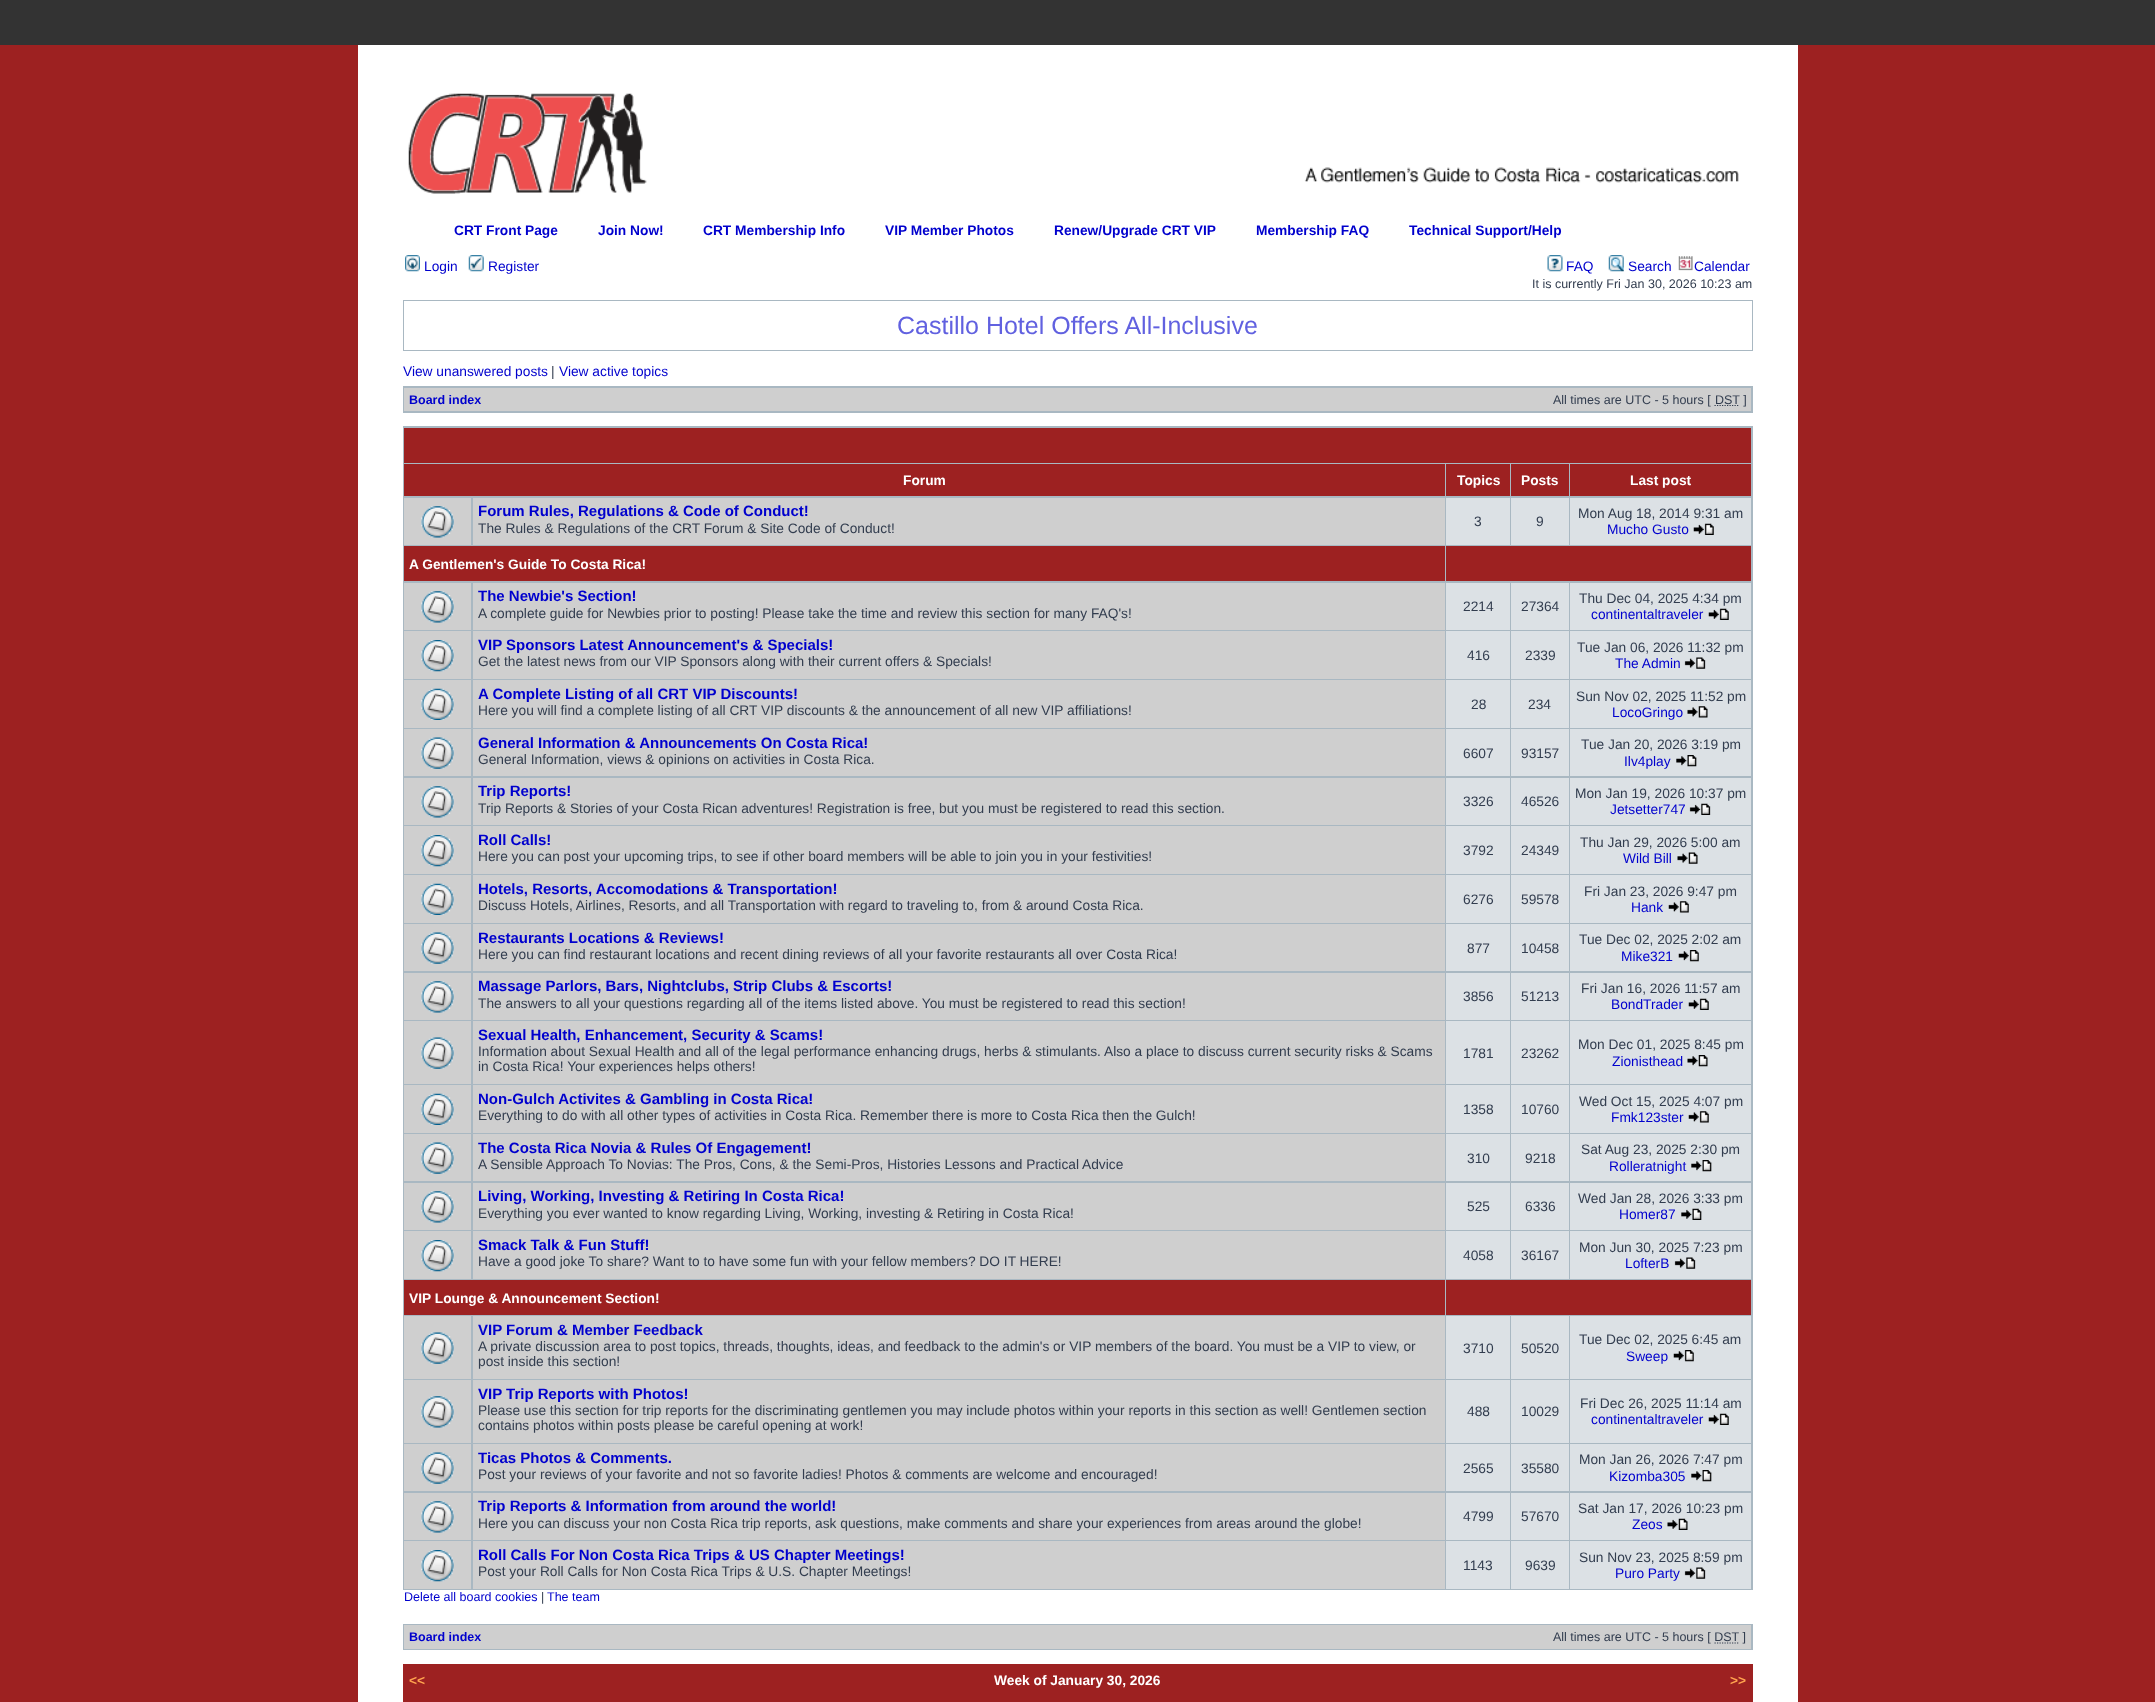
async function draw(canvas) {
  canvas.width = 2155;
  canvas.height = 1702;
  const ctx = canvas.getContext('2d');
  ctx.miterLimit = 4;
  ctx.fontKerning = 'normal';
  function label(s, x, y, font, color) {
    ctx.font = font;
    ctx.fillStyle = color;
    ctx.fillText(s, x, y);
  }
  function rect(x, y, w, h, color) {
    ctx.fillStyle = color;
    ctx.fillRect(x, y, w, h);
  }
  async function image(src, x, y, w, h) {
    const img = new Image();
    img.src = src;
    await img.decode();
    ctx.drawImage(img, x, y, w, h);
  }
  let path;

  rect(0, 0, 2155, 1702, '#9d2121');
  rect(0, 0, 2155, 45, '#333');
  rect(358, 45, 1440, 1657, '#fff');
  await image('assets/img1.png', 408, 93, 1331, 101);
  label('CRT Front Page', 454, 235, 'bold 13.75px Liberation Sans', '#0000cd');
  label('Join Now!', 598, 235, 'bold 13.75px Liberation Sans', '#0000cd');
  label('CRT Membership Info', 703, 235, 'bold 13.75px Liberation Sans', '#0000cd');
  label('VIP Member Photos', 885, 235, 'bold 13.75px Liberation Sans', '#0000cd');
  label('Renew/Upgrade CRT VIP', 1054, 235, 'bold 13.75px Liberation Sans', '#0000cd');
  label('Membership FAQ', 1256, 235, 'bold 13.75px Liberation Sans', '#0000cd');
  label('Technical Support/Help', 1409, 235, 'bold 13.75px Liberation Sans', '#0000cd');
  await image('assets/img2.png', 405, 255, 15, 17);
  label('Login', 424, 271, '13.75px Liberation Sans', '#0000cd');
  await image('assets/img3.png', 468, 255, 16, 17);
  label('Register', 488, 271, '13.75px Liberation Sans', '#0000cd');
  await image('assets/img4.png', 1547, 255, 16, 17);
  label('FAQ', 1566, 271, '13.75px Liberation Sans', '#0000cd');
  await image('assets/img5.png', 1608, 255, 16, 17);
  label('Search', 1628, 271, '13.75px Liberation Sans', '#0000cd');
  await image('assets/img6.png', 1678, 256, 15, 15);
  label('Calendar', 1694, 271, '13.75px Liberation Sans', '#0000cd');
  label('It is currently Fri Jan 30, 2026 10:23 am', 1532, 288, '12.5px Liberation Sans', '#323d4f');
  ctx.strokeStyle = '#a9b8c2';
  ctx.strokeRect(403.5, 300.5, 1349, 50);
  label('Castillo Hotel Offers All-Inclusive', 897, 334, '25px Liberation Sans', '#6161e0');
  label('View unanswered posts', 403, 376, '13.75px Liberation Sans', '#0000cd');
  label('|', 551, 376, '13.75px Liberation Sans', '#323d4f');
  label('View active topics', 559, 376, '13.75px Liberation Sans', '#0000cd');
  rect(403, 386, 1350, 27, '#a9b8c2');
  rect(404, 388, 1347, 23, '#cfcfcf');
  label('Board index', 409, 404, 'bold 12.5px Liberation Sans', '#0000cd');
  label('All times are UTC - 5 hours [', 1553, 404, '12.5px Liberation Sans', '#323d4f');
  path = new Path2D('M1714.5 405.5H1739.5');
  ctx.strokeStyle = '#323d4f';
  ctx.lineWidth = 1.2;
  ctx.setLineDash([1.25, 1.25]);
  ctx.stroke(path);
  label('DST ]', 1715, 404, '12.5px Liberation Sans', '#323d4f');
  rect(403, 426, 1350, 1164, '#a9b8c2');
  rect(404, 428, 1347, 35, '#9d2121');
  rect(404, 464, 1041, 32, '#9d2121');
  label('Forum', 903, 485, 'bold 13.75px Liberation Sans', '#fff');
  rect(1446, 464, 64, 32, '#9d2121');
  label('Topics', 1457, 485, 'bold 13.75px Liberation Sans', '#fff');
  rect(1511, 464, 58, 32, '#9d2121');
  label('Posts', 1521, 485, 'bold 13.75px Liberation Sans', '#fff');
  rect(1570, 464, 181, 32, '#9d2121');
  label('Last post', 1630, 485, 'bold 13.75px Liberation Sans', '#fff');
  rect(404, 498, 67, 47, '#cfcfcf');
  await image('assets/img7.png', 421, 506, 33, 32);
  rect(473, 498, 972, 47, '#cfcfcf');
  label('Forum Rules, Regulations & Code of Conduct!', 478, 516, 'bold 15px Liberation Sans', '#0000cd');
  label('The Rules & Regulations of the CRT Forum & Site Code of Conduct!', 478, 533, '13.75px Liberation Sans', '#323d4f');
  rect(1446, 498, 64, 47, '#dce1e5');
  label('3', 1474, 526, '13.75px Liberation Sans', '#323d4f');
  rect(1511, 498, 58, 47, '#dce1e5');
  label('9', 1536, 526, '13.75px Liberation Sans', '#323d4f');
  rect(1570, 498, 181, 47, '#dce1e5');
  label('Mon Aug 18, 2014 9:31 am', 1578, 518, '13.75px Liberation Sans', '#323d4f');
  label('Mucho Gusto', 1607, 534, '13.75px Liberation Sans', '#0000cd');
  await image('assets/img8.png', 1693, 523, 21, 12);
  rect(404, 546, 1041, 35, '#9d2121');
  label('A Gentlemen\'s Guide To Costa Rica!', 409, 569, 'bold 13.75px Liberation Sans', '#fff');
  rect(1446, 546, 305, 35, '#9d2121');
  rect(404, 583, 67, 47, '#cfcfcf');
  await image('assets/img7.png', 421, 591, 33, 32);
  rect(473, 583, 972, 47, '#cfcfcf');
  label('The Newbie\'s Section!', 478, 601, 'bold 15px Liberation Sans', '#0000cd');
  label('A complete guide for Newbies prior to posting! Please take the time and review this section for many FAQ\'s!', 478, 618, '13.75px Liberation Sans', '#323d4f');
  rect(1446, 583, 64, 47, '#dce1e5');
  label('2214', 1463, 611, '13.75px Liberation Sans', '#323d4f');
  rect(1511, 583, 58, 47, '#dce1e5');
  label('27364', 1521, 611, '13.75px Liberation Sans', '#323d4f');
  rect(1570, 583, 181, 47, '#dce1e5');
  label('Thu Dec 04, 2025 4:34 pm', 1579, 603, '13.75px Liberation Sans', '#323d4f');
  label('continentaltraveler', 1591, 619, '13.75px Liberation Sans', '#0000cd');
  await image('assets/img8.png', 1708, 608, 21, 12);
  rect(404, 631, 67, 48, '#cfcfcf');
  await image('assets/img9.png', 421, 640, 33, 32);
  rect(473, 631, 972, 48, '#cfcfcf');
  label('VIP Sponsors Latest Announcement\'s & Specials!', 478, 650, 'bold 15px Liberation Sans', '#0000cd');
  label('Get the latest news from our VIP Sponsors along with their current offers & Specials!', 478, 666, '13.75px Liberation Sans', '#323d4f');
  rect(1446, 631, 64, 48, '#dce1e5');
  label('416', 1467, 660, '13.75px Liberation Sans', '#323d4f');
  rect(1511, 631, 58, 48, '#dce1e5');
  label('2339', 1525, 660, '13.75px Liberation Sans', '#323d4f');
  rect(1570, 631, 181, 48, '#dce1e5');
  label('Tue Jan 06, 2026 11:32 pm', 1577, 652, '13.75px Liberation Sans', '#323d4f');
  label('The Admin', 1615, 668, '13.75px Liberation Sans', '#0000cd');
  await image('assets/img10.png', 1684, 657, 22, 12);
  rect(404, 680, 67, 48, '#cfcfcf');
  await image('assets/img11.png', 421, 688, 33, 32);
  rect(473, 680, 972, 48, '#cfcfcf');
  label('A Complete Listing of all CRT VIP Discounts!', 478, 699, 'bold 15px Liberation Sans', '#0000cd');
  label('Here you will find a complete listing of all CRT VIP discounts & the announcement of all new VIP affiliations!', 478, 715, '13.75px Liberation Sans', '#323d4f');
  rect(1446, 680, 64, 48, '#dce1e5');
  label('28', 1471, 709, '13.75px Liberation Sans', '#323d4f');
  rect(1511, 680, 58, 48, '#dce1e5');
  label('234', 1528, 709, '13.75px Liberation Sans', '#323d4f');
  rect(1570, 680, 181, 48, '#dce1e5');
  label('Sun Nov 02, 2025 11:52 pm', 1576, 701, '13.75px Liberation Sans', '#323d4f');
  label('LocoGringo', 1612, 717, '13.75px Liberation Sans', '#0000cd');
  await image('assets/img12.png', 1687, 706, 21, 12);
  rect(404, 729, 67, 47, '#cfcfcf');
  await image('assets/img13.png', 421, 737, 33, 32);
  rect(473, 729, 972, 47, '#cfcfcf');
  label('General Information & Announcements On Costa Rica!', 478, 748, 'bold 15px Liberation Sans', '#0000cd');
  label('General Information, views & opinions on activities in Costa Rica.', 478, 764, '13.75px Liberation Sans', '#323d4f');
  rect(1446, 729, 64, 47, '#dce1e5');
  label('6607', 1463, 758, '13.75px Liberation Sans', '#323d4f');
  rect(1511, 729, 58, 47, '#dce1e5');
  label('93157', 1521, 758, '13.75px Liberation Sans', '#323d4f');
  rect(1570, 729, 181, 47, '#dce1e5');
  label('Tue Jan 20, 2026 3:19 pm', 1581, 749, '13.75px Liberation Sans', '#323d4f');
  label('Ilv4play', 1624, 766, '13.75px Liberation Sans', '#0000cd');
  await image('assets/img14.png', 1676, 755, 21, 12);
  rect(404, 778, 67, 47, '#cfcfcf');
  await image('assets/img7.png', 421, 786, 33, 32);
  rect(473, 778, 972, 47, '#cfcfcf');
  label('Trip Reports!', 478, 796, 'bold 15px Liberation Sans', '#0000cd');
  label('Trip Reports & Stories of your Costa Rican adventures! Registration is free, but you must be registered to read this section.', 478, 813, '13.75px Liberation Sans', '#323d4f');
  rect(1446, 778, 64, 47, '#dce1e5');
  label('3326', 1463, 806, '13.75px Liberation Sans', '#323d4f');
  rect(1511, 778, 58, 47, '#dce1e5');
  label('46526', 1521, 806, '13.75px Liberation Sans', '#323d4f');
  rect(1570, 778, 181, 47, '#dce1e5');
  label('Mon Jan 19, 2026 10:37 pm', 1575, 798, '13.75px Liberation Sans', '#323d4f');
  label('Jetsetter747', 1610, 814, '13.75px Liberation Sans', '#0000cd');
  await image('assets/img15.png', 1689, 803, 22, 12);
  rect(404, 826, 67, 48, '#cfcfcf');
  await image('assets/img9.png', 421, 835, 33, 32);
  rect(473, 826, 972, 48, '#cfcfcf');
  label('Roll Calls!', 478, 845, 'bold 15px Liberation Sans', '#0000cd');
  label('Here you can post your upcoming trips, to see if other board members will be able to join you in your festivities!', 478, 861, '13.75px Liberation Sans', '#323d4f');
  rect(1446, 826, 64, 48, '#dce1e5');
  label('3792', 1463, 855, '13.75px Liberation Sans', '#323d4f');
  rect(1511, 826, 58, 48, '#dce1e5');
  label('24349', 1521, 855, '13.75px Liberation Sans', '#323d4f');
  rect(1570, 826, 181, 48, '#dce1e5');
  label('Thu Jan 29, 2026 5:00 am', 1580, 847, '13.75px Liberation Sans', '#323d4f');
  label('Wild Bill', 1623, 863, '13.75px Liberation Sans', '#0000cd');
  await image('assets/img16.png', 1677, 852, 21, 12);
  rect(404, 875, 67, 48, '#cfcfcf');
  await image('assets/img11.png', 421, 883, 33, 32);
  rect(473, 875, 972, 48, '#cfcfcf');
  label('Hotels, Resorts, Accomodations & Transportation!', 478, 894, 'bold 15px Liberation Sans', '#0000cd');
  label('Discuss Hotels, Airlines, Resorts, and all Transportation with regard to traveling to, from & around Costa Rica.', 478, 910, '13.75px Liberation Sans', '#323d4f');
  rect(1446, 875, 64, 48, '#dce1e5');
  label('6276', 1463, 904, '13.75px Liberation Sans', '#323d4f');
  rect(1511, 875, 58, 48, '#dce1e5');
  label('59578', 1521, 904, '13.75px Liberation Sans', '#323d4f');
  rect(1570, 875, 181, 48, '#dce1e5');
  label('Fri Jan 23, 2026 9:47 pm', 1584, 896, '13.75px Liberation Sans', '#323d4f');
  label('Hank', 1631, 912, '13.75px Liberation Sans', '#0000cd');
  await image('assets/img17.png', 1668, 901, 21, 12);
  rect(404, 924, 67, 47, '#cfcfcf');
  await image('assets/img13.png', 421, 932, 33, 32);
  rect(473, 924, 972, 47, '#cfcfcf');
  label('Restaurants Locations & Reviews!', 478, 943, 'bold 15px Liberation Sans', '#0000cd');
  label('Here you can find restaurant locations and recent dining reviews of all your favorite restaurants all over Costa Rica!', 478, 959, '13.75px Liberation Sans', '#323d4f');
  rect(1446, 924, 64, 47, '#dce1e5');
  label('877', 1467, 953, '13.75px Liberation Sans', '#323d4f');
  rect(1511, 924, 58, 47, '#dce1e5');
  label('10458', 1521, 953, '13.75px Liberation Sans', '#323d4f');
  rect(1570, 924, 181, 47, '#dce1e5');
  label('Tue Dec 02, 2025 2:02 am', 1579, 944, '13.75px Liberation Sans', '#323d4f');
  label('Mike321', 1621, 961, '13.75px Liberation Sans', '#0000cd');
  await image('assets/img18.png', 1678, 950, 21, 12);
  rect(404, 973, 67, 47, '#cfcfcf');
  await image('assets/img7.png', 421, 981, 33, 32);
  rect(473, 973, 972, 47, '#cfcfcf');
  label('Massage Parlors, Bars, Nightclubs, Strip Clubs & Escorts!', 478, 991, 'bold 15px Liberation Sans', '#0000cd');
  label('The answers to all your questions regarding all of the items listed above. You must be registered to read this section!', 478, 1008, '13.75px Liberation Sans', '#323d4f');
  rect(1446, 973, 64, 47, '#dce1e5');
  label('3856', 1463, 1001, '13.75px Liberation Sans', '#323d4f');
  rect(1511, 973, 58, 47, '#dce1e5');
  label('51213', 1521, 1001, '13.75px Liberation Sans', '#323d4f');
  rect(1570, 973, 181, 47, '#dce1e5');
  label('Fri Jan 16, 2026 11:57 am', 1581, 993, '13.75px Liberation Sans', '#323d4f');
  label('BondTrader', 1611, 1009, '13.75px Liberation Sans', '#0000cd');
  await image('assets/img8.png', 1688, 998, 21, 12);
  rect(404, 1021, 67, 63, '#cfcfcf');
  await image('assets/img13.png', 421, 1037, 33, 32);
  rect(473, 1021, 972, 63, '#cfcfcf');
  label('Sexual Health, Enhancement, Security & Scams!', 478, 1040, 'bold 15px Liberation Sans', '#0000cd');
  label('Information about Sexual Health and all of the legal performance enhancing drugs, herbs & stimulants. Also a place to discuss current security risks & Scams', 478, 1056, '13.75px Liberation Sans', '#323d4f');
  label('in Costa Rica! Your experiences helps others!', 478, 1071, '13.75px Liberation Sans', '#323d4f');
  rect(1446, 1021, 64, 63, '#dce1e5');
  label('1781', 1463, 1058, '13.75px Liberation Sans', '#323d4f');
  rect(1511, 1021, 58, 63, '#dce1e5');
  label('23262', 1521, 1058, '13.75px Liberation Sans', '#323d4f');
  rect(1570, 1021, 181, 63, '#dce1e5');
  label('Mon Dec 01, 2025 8:45 pm', 1578, 1049, '13.75px Liberation Sans', '#323d4f');
  label('Zionisthead', 1612, 1066, '13.75px Liberation Sans', '#0000cd');
  await image('assets/img19.png', 1687, 1055, 21, 12);
  rect(404, 1085, 67, 48, '#cfcfcf');
  await image('assets/img11.png', 421, 1093, 33, 32);
  rect(473, 1085, 972, 48, '#cfcfcf');
  label('Non-Gulch Activites & Gambling in Costa Rica!', 478, 1104, 'bold 15px Liberation Sans', '#0000cd');
  label('Everything to do with all other types of activities in Costa Rica. Remember there is more to Costa Rica then the Gulch!', 478, 1120, '13.75px Liberation Sans', '#323d4f');
  rect(1446, 1085, 64, 48, '#dce1e5');
  label('1358', 1463, 1114, '13.75px Liberation Sans', '#323d4f');
  rect(1511, 1085, 58, 48, '#dce1e5');
  label('10760', 1521, 1114, '13.75px Liberation Sans', '#323d4f');
  rect(1570, 1085, 181, 48, '#dce1e5');
  label('Wed Oct 15, 2025 4:07 pm', 1579, 1106, '13.75px Liberation Sans', '#323d4f');
  label('Fmk123ster', 1611, 1122, '13.75px Liberation Sans', '#0000cd');
  await image('assets/img20.png', 1688, 1111, 21, 12);
  rect(404, 1134, 67, 47, '#cfcfcf');
  await image('assets/img13.png', 421, 1142, 33, 32);
  rect(473, 1134, 972, 47, '#cfcfcf');
  label('The Costa Rica Novia & Rules Of Engagement!', 478, 1153, 'bold 15px Liberation Sans', '#0000cd');
  label('A Sensible Approach To Novias: The Pros, Cons, & the Semi-Pros, Histories Lessons and Practical Advice', 478, 1169, '13.75px Liberation Sans', '#323d4f');
  rect(1446, 1134, 64, 47, '#dce1e5');
  label('310', 1467, 1163, '13.75px Liberation Sans', '#323d4f');
  rect(1511, 1134, 58, 47, '#dce1e5');
  label('9218', 1525, 1163, '13.75px Liberation Sans', '#323d4f');
  rect(1570, 1134, 181, 47, '#dce1e5');
  label('Sat Aug 23, 2025 2:30 pm', 1581, 1154, '13.75px Liberation Sans', '#323d4f');
  label('Rolleratnight', 1609, 1171, '13.75px Liberation Sans', '#0000cd');
  await image('assets/img21.png', 1691, 1160, 21, 12);
  rect(404, 1183, 67, 47, '#cfcfcf');
  await image('assets/img7.png', 421, 1191, 33, 32);
  rect(473, 1183, 972, 47, '#cfcfcf');
  label('Living, Working, Investing & Retiring In Costa Rica!', 478, 1201, 'bold 15px Liberation Sans', '#0000cd');
  label('Everything you ever wanted to know regarding Living, Working, investing & Retiring in Costa Rica!', 478, 1218, '13.75px Liberation Sans', '#323d4f');
  rect(1446, 1183, 64, 47, '#dce1e5');
  label('525', 1467, 1211, '13.75px Liberation Sans', '#323d4f');
  rect(1511, 1183, 58, 47, '#dce1e5');
  label('6336', 1525, 1211, '13.75px Liberation Sans', '#323d4f');
  rect(1570, 1183, 181, 47, '#dce1e5');
  label('Wed Jan 28, 2026 3:33 pm', 1578, 1203, '13.75px Liberation Sans', '#323d4f');
  label('Homer87', 1619, 1219, '13.75px Liberation Sans', '#0000cd');
  await image('assets/img22.png', 1681, 1208, 21, 12);
  rect(404, 1231, 67, 48, '#cfcfcf');
  await image('assets/img9.png', 421, 1240, 33, 32);
  rect(473, 1231, 972, 48, '#cfcfcf');
  label('Smack Talk & Fun Stuff!', 478, 1250, 'bold 15px Liberation Sans', '#0000cd');
  label('Have a good joke To share? Want to to have some fun with your fellow members? DO IT HERE!', 478, 1266, '13.75px Liberation Sans', '#323d4f');
  rect(1446, 1231, 64, 48, '#dce1e5');
  label('4058', 1463, 1260, '13.75px Liberation Sans', '#323d4f');
  rect(1511, 1231, 58, 48, '#dce1e5');
  label('36167', 1521, 1260, '13.75px Liberation Sans', '#323d4f');
  rect(1570, 1231, 181, 48, '#dce1e5');
  label('Mon Jun 30, 2025 7:23 pm', 1579, 1252, '13.75px Liberation Sans', '#323d4f');
  label('LofterB', 1625, 1268, '13.75px Liberation Sans', '#0000cd');
  await image('assets/img23.png', 1674, 1257, 22, 12);
  rect(404, 1280, 1041, 35, '#9d2121');
  label('VIP Lounge & Announcement Section!', 409, 1303, 'bold 13.75px Liberation Sans', '#fff');
  rect(1446, 1280, 305, 35, '#9d2121');
  rect(404, 1316, 67, 63, '#cfcfcf');
  await image('assets/img13.png', 421, 1332, 33, 32);
  rect(473, 1316, 972, 63, '#cfcfcf');
  label('VIP Forum & Member Feedback', 478, 1335, 'bold 15px Liberation Sans', '#0000cd');
  label('A private discussion area to post topics, threads, thoughts, ideas, and feedback to the admin\'s or VIP members of the board. You must be a VIP to view, or', 478, 1351, '13.75px Liberation Sans', '#323d4f');
  label('post inside this section!', 478, 1366, '13.75px Liberation Sans', '#323d4f');
  rect(1446, 1316, 64, 63, '#dce1e5');
  label('3710', 1463, 1353, '13.75px Liberation Sans', '#323d4f');
  rect(1511, 1316, 58, 63, '#dce1e5');
  label('50520', 1521, 1353, '13.75px Liberation Sans', '#323d4f');
  rect(1570, 1316, 181, 63, '#dce1e5');
  label('Tue Dec 02, 2025 6:45 am', 1579, 1344, '13.75px Liberation Sans', '#323d4f');
  label('Sweep', 1626, 1361, '13.75px Liberation Sans', '#0000cd');
  await image('assets/img18.png', 1673, 1350, 21, 12);
  rect(404, 1380, 67, 63, '#cfcfcf');
  await image('assets/img7.png', 421, 1396, 33, 32);
  rect(473, 1380, 972, 63, '#cfcfcf');
  label('VIP Trip Reports with Photos!', 478, 1399, 'bold 15px Liberation Sans', '#0000cd');
  label('Please use this section for trip reports for the discriminating gentlemen you may include photos within your reports in this section as well! Gentlemen section', 478, 1415, '13.75px Liberation Sans', '#323d4f');
  label('contains photos within posts please be careful opening at work!', 478, 1430, '13.75px Liberation Sans', '#323d4f');
  rect(1446, 1380, 64, 63, '#dce1e5');
  label('488', 1467, 1416, '13.75px Liberation Sans', '#323d4f');
  rect(1511, 1380, 58, 63, '#dce1e5');
  label('10029', 1521, 1416, '13.75px Liberation Sans', '#323d4f');
  rect(1570, 1380, 181, 63, '#dce1e5');
  label('Fri Dec 26, 2025 11:14 am', 1580, 1408, '13.75px Liberation Sans', '#323d4f');
  label('continentaltraveler', 1591, 1424, '13.75px Liberation Sans', '#0000cd');
  await image('assets/img8.png', 1708, 1413, 21, 12);
  rect(404, 1444, 67, 47, '#cfcfcf');
  await image('assets/img13.png', 421, 1452, 33, 32);
  rect(473, 1444, 972, 47, '#cfcfcf');
  label('Ticas Photos & Comments.', 478, 1463, 'bold 15px Liberation Sans', '#0000cd');
  label('Post your reviews of your favorite and not so favorite ladies! Photos & comments are welcome and encouraged!', 478, 1479, '13.75px Liberation Sans', '#323d4f');
  rect(1446, 1444, 64, 47, '#dce1e5');
  label('2565', 1463, 1473, '13.75px Liberation Sans', '#323d4f');
  rect(1511, 1444, 58, 47, '#dce1e5');
  label('35580', 1521, 1473, '13.75px Liberation Sans', '#323d4f');
  rect(1570, 1444, 181, 47, '#dce1e5');
  label('Mon Jan 26, 2026 7:47 pm', 1579, 1464, '13.75px Liberation Sans', '#323d4f');
  label('Kizomba305', 1609, 1481, '13.75px Liberation Sans', '#0000cd');
  await image('assets/img21.png', 1691, 1470, 21, 12);
  rect(404, 1493, 67, 47, '#cfcfcf');
  await image('assets/img7.png', 421, 1501, 33, 32);
  rect(473, 1493, 972, 47, '#cfcfcf');
  label('Trip Reports & Information from around the world!', 478, 1511, 'bold 15px Liberation Sans', '#0000cd');
  label('Here you can discuss your non Costa Rica trip reports, ask questions, make comments and share your experiences from areas around the globe!', 478, 1528, '13.75px Liberation Sans', '#323d4f');
  rect(1446, 1493, 64, 47, '#dce1e5');
  label('4799', 1463, 1521, '13.75px Liberation Sans', '#323d4f');
  rect(1511, 1493, 58, 47, '#dce1e5');
  label('57670', 1521, 1521, '13.75px Liberation Sans', '#323d4f');
  rect(1570, 1493, 181, 47, '#dce1e5');
  label('Sat Jan 17, 2026 10:23 pm', 1578, 1513, '13.75px Liberation Sans', '#323d4f');
  label('Zeos', 1632, 1529, '13.75px Liberation Sans', '#0000cd');
  await image('assets/img24.png', 1667, 1518, 21, 12);
  rect(404, 1541, 67, 48, '#cfcfcf');
  await image('assets/img25.png', 421, 1550, 33, 32);
  rect(473, 1541, 972, 48, '#cfcfcf');
  label('Roll Calls For Non Costa Rica Trips & US Chapter Meetings!', 478, 1560, 'bold 15px Liberation Sans', '#0000cd');
  label('Post your Roll Calls for Non Costa Rica Trips & U.S. Chapter Meetings!', 478, 1576, '13.75px Liberation Sans', '#323d4f');
  rect(1446, 1541, 64, 48, '#dce1e5');
  label('1143', 1463, 1570, '13.75px Liberation Sans', '#323d4f');
  rect(1511, 1541, 58, 48, '#dce1e5');
  label('9639', 1525, 1570, '13.75px Liberation Sans', '#323d4f');
  rect(1570, 1541, 181, 48, '#dce1e5');
  label('Sun Nov 23, 2025 8:59 pm', 1579, 1562, '13.75px Liberation Sans', '#323d4f');
  label('Puro Party', 1615, 1578, '13.75px Liberation Sans', '#0000cd');
  await image('assets/img10.png', 1684, 1567, 22, 12);
  label('Delete all board cookies', 404, 1601, '12.5px Liberation Sans', '#0000cd');
  label('|', 541, 1601, '12.5px Liberation Sans', '#323d4f');
  label('The team', 547, 1601, '12.5px Liberation Sans', '#0000cd');
  rect(403, 1624, 1350, 26, '#a9b8c2');
  rect(404, 1625, 1347, 24, '#cfcfcf');
  label('Board index', 409, 1641, 'bold 12.5px Liberation Sans', '#0000cd');
  label('All times are UTC - 5 hours [ DST ]', 1553, 1641, '12.5px Liberation Sans', '#323d4f');
  path = new Path2D('M1714.5 1643H1739.5');
  ctx.stroke(path);
  rect(403, 1664, 1350, 32, '#9d2121');
  label('<<', 409, 1685, 'bold 13.75px Liberation Sans', '#ffa34f');
  label('Week of January 30, 2026', 994, 1685, 'bold 13.75px Liberation Sans', '#fff');
  label('>>', 1730, 1685, 'bold 13.75px Liberation Sans', '#ffa34f');
  rect(403, 1696, 1350, 6, '#9d2121');
}

draw(document.querySelector('canvas'));
